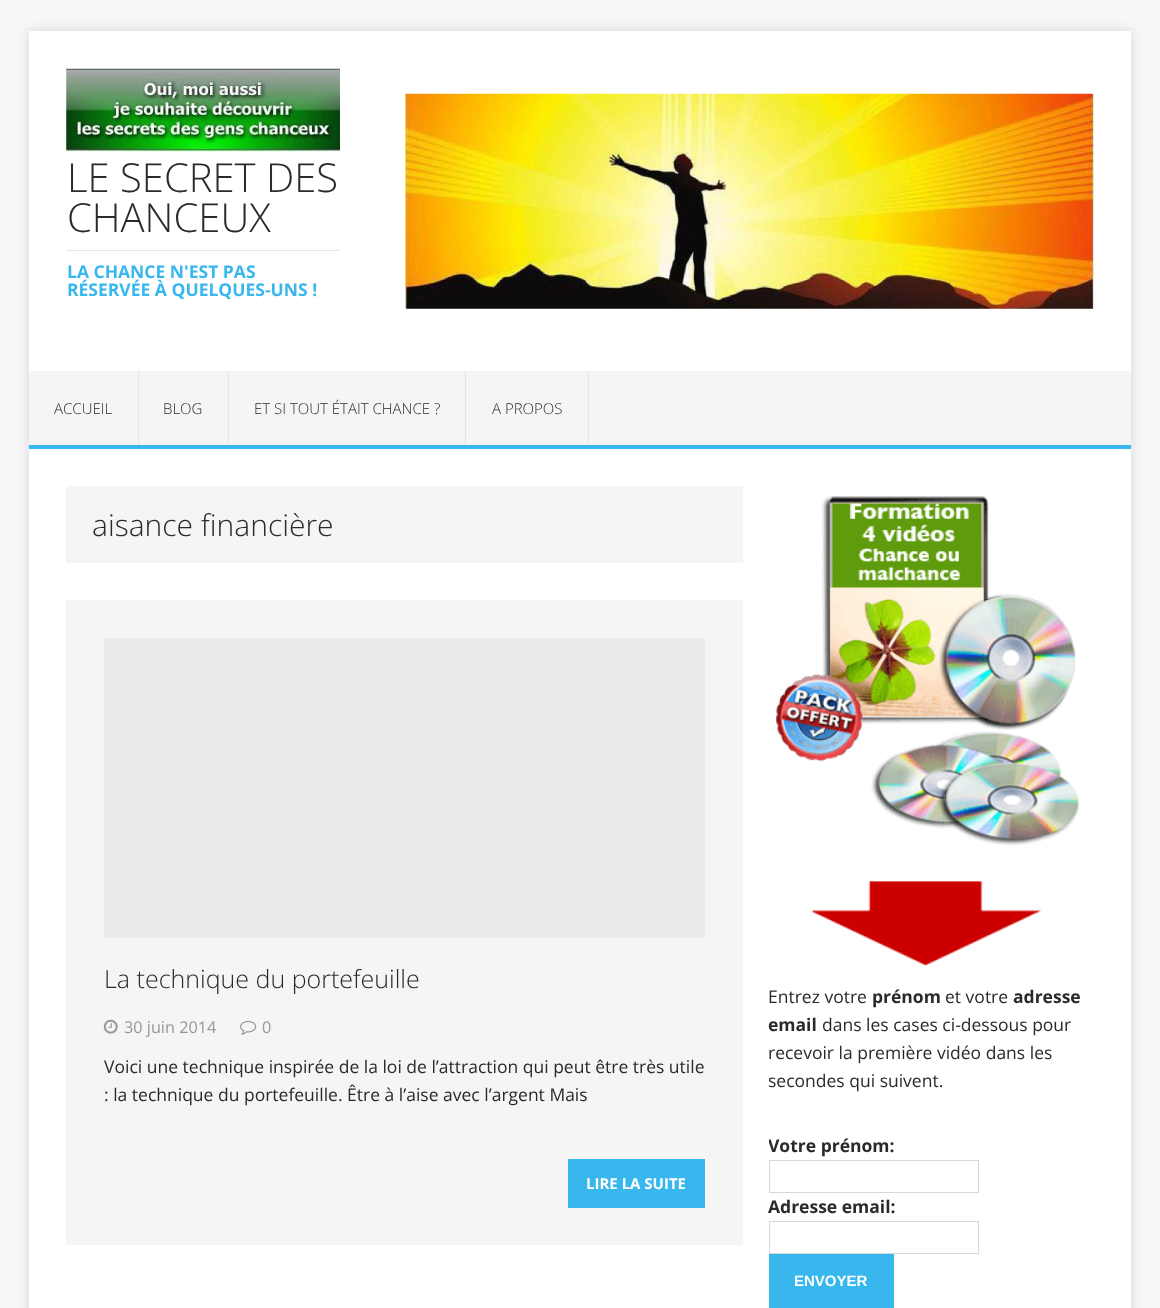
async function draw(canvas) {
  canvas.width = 1160;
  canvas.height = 1308;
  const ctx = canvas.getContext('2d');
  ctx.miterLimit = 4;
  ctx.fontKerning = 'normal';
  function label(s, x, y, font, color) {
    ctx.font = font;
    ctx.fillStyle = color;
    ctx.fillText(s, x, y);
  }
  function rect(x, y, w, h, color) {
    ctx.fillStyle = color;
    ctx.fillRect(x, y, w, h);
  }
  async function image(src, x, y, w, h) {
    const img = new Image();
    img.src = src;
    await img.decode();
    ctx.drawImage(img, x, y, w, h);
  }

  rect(0, 0, 1160, 1308, '#f7f7f7');
  ctx.fillStyle = '#3232322b';
  ctx.filter = 'blur(6px)';
  ctx.beginPath();
  ctx.rect(29, 31, 1102, 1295);
  ctx.fill();
  ctx.filter = 'none';
  rect(29, 31, 1102, 340, '#fff');
  rect(29, 445, 1102, 4, '#38b7ee');
  await image('assets/img1.png', 66, 68, 274, 84);
  label('LE SECRET DES', 67, 192, '300 40px Open Sans', '#2a2a2a');
  label('CHANCEUX', 67, 232, '300 40px Open Sans', '#2a2a2a');
  rect(66, 250, 274, 1, '#e5e5e5');
  label('LA CHANCE N\'EST PAS', 67, 278, 'bold 17.5px Open Sans', '#38b7ee');
  label('RÉSERVÉE À QUELQUES-UNS !', 67, 296, 'bold 17.5px Open Sans', '#38b7ee');
  await image('assets/img2.png', 405, 93, 689, 216);
  rect(29, 371, 1102, 74, '#f5f5f5');
  rect(138, 371, 1, 74, '#e5e5e5');
  label('ACCUEIL', 54, 414, '300 15px Open Sans', '#2a2a2a');
  rect(228, 371, 1, 74, '#e5e5e5');
  label('BLOG', 163, 414, '300 15px Open Sans', '#2a2a2a');
  rect(465, 371, 1, 74, '#e5e5e5');
  label('ET SI TOUT ÉTAIT CHANCE ?', 254, 414, '300 15px Open Sans', '#2a2a2a');
  rect(588, 371, 1, 74, '#e5e5e5');
  label('A PROPOS', 492, 414, '300 15px Open Sans', '#2a2a2a');
  rect(29, 449, 1102, 859, '#fff');
  rect(66, 486, 677, 77, '#f5f5f5');
  label('aisance financière', 92, 536, '300 30px Open Sans', '#2a2a2a');
  rect(66, 600, 677, 645, '#f5f5f5');
  rect(104, 638, 601, 300, '#ebebeb');
  label('La technique du portefeuille', 104, 988, '300 25px Open Sans', '#2a2a2a');
  await image('assets/img3.png', 103, 1019, 15, 15);
  label('30 juin 2014', 124, 1033, '16.25px Open Sans', '#979797');
  await image('assets/img4.png', 240, 1020, 17, 15);
  label('0', 262, 1033, '16.25px Open Sans', '#979797');
  label('Voici une technique inspirée de la loi de l’attraction qui peut être très utile', 104, 1073, '17.5px Open Sans', '#2a2a2a');
  label(': la technique du portefeuille. Être à l’aise avec l’argent Mais', 104, 1101, '17.5px Open Sans', '#2a2a2a');
  rect(568, 1159, 137, 49, '#38b7ee');
  label('LIRE LA SUITE', 586, 1189, 'bold 15px Open Sans', '#fff');
  await image('assets/img5.png', 776, 495, 304, 471);
  label('Entrez votre', 768, 1003, '17.5px Open Sans', '#2a2a2a');
  label('prénom', 872, 1003, 'bold 17.5px Open Sans', '#2a2a2a');
  label('et votre', 945, 1003, '17.5px Open Sans', '#2a2a2a');
  label('adresse', 1013, 1003, 'bold 17.5px Open Sans', '#2a2a2a');
  label('email', 768, 1031, 'bold 17.5px Open Sans', '#2a2a2a');
  label('dans les cases ci-dessous pour', 822, 1031, '17.5px Open Sans', '#2a2a2a');
  label('recevoir la première vidéo dans les', 768, 1059, '17.5px Open Sans', '#2a2a2a');
  label('secondes qui suivent.', 768, 1087, '17.5px Open Sans', '#2a2a2a');
  ctx.save();
  ctx.beginPath();
  ctx.rect(769, 1133, 325, 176);
  ctx.clip();
  label('Votre prénom:', 768, 1152, 'bold 17.5px Open Sans', '#2a2a2a');
  ctx.restore();
  ctx.strokeStyle = '#d7d8d8';
  ctx.strokeRect(769.5, 1160.5, 209, 32);
  label('Adresse email:', 768, 1213, 'bold 17.5px Open Sans', '#2a2a2a');
  ctx.strokeRect(769.5, 1221.5, 209, 32);
  rect(769, 1254, 125, 54, '#38b7ee');
  label('ENVOYER', 794, 1286, 'bold 15px Liberation Sans', '#fff');
}

draw(document.querySelector('canvas'));
